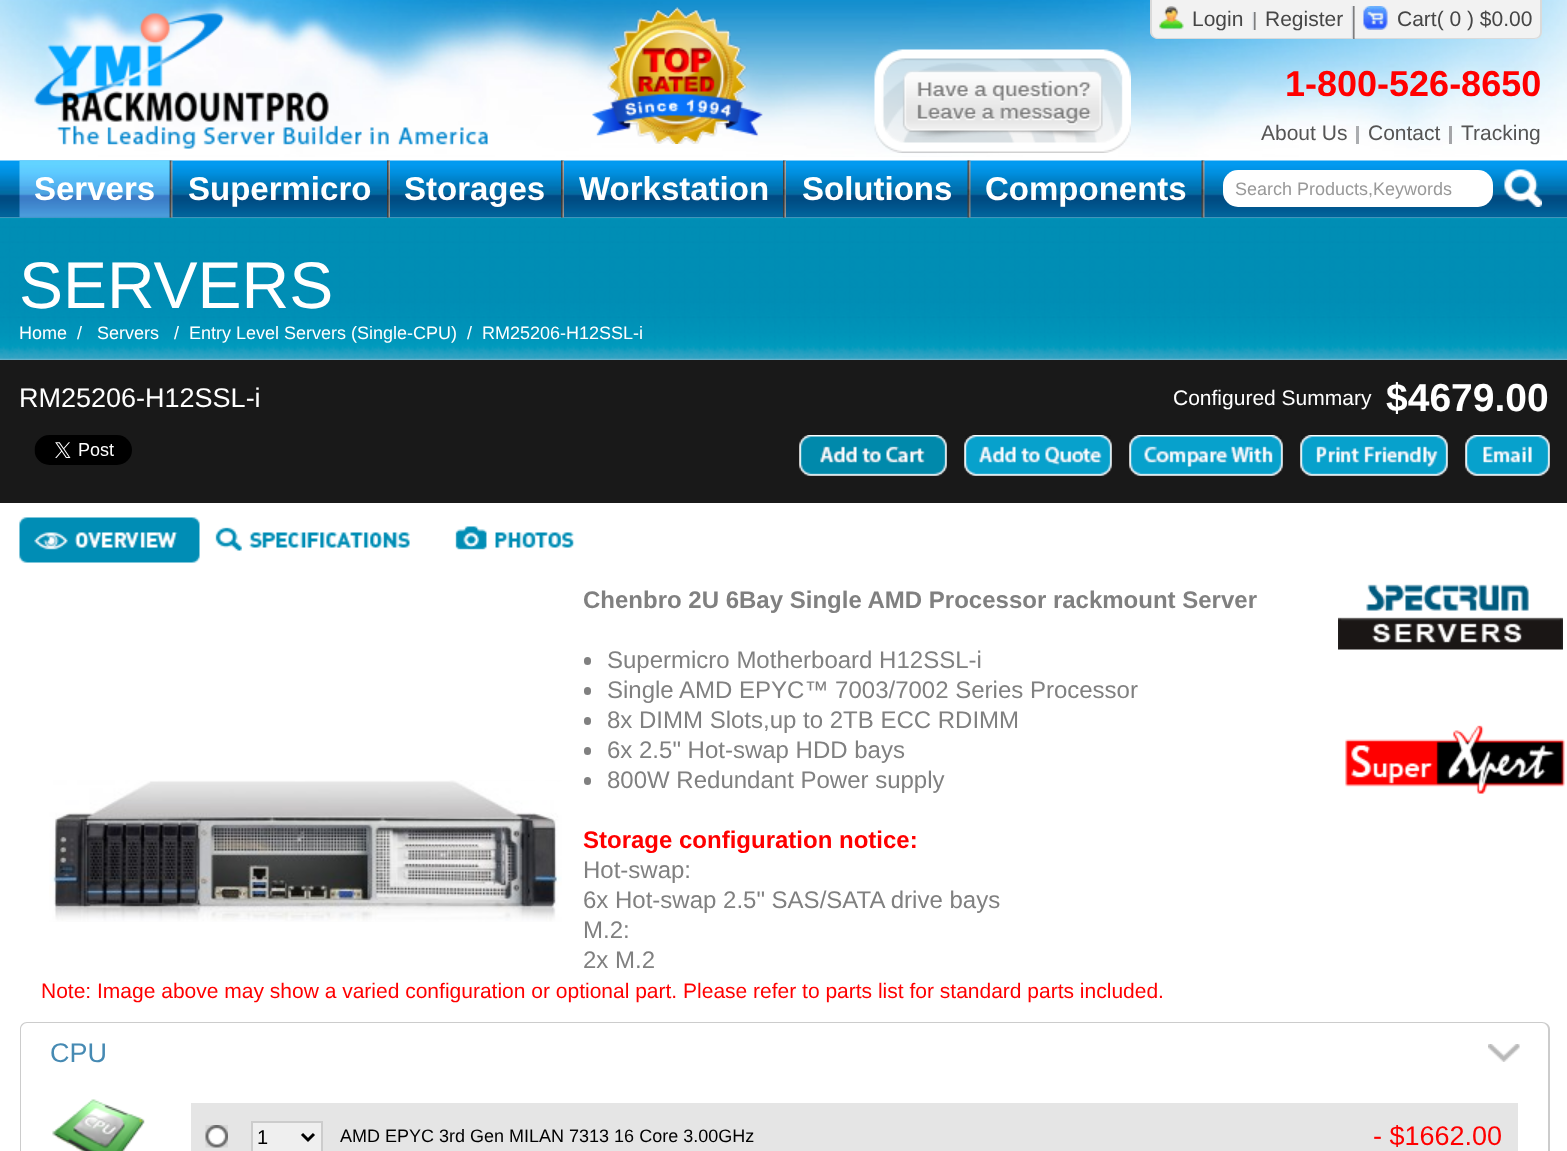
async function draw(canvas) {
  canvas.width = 1567;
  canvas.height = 1151;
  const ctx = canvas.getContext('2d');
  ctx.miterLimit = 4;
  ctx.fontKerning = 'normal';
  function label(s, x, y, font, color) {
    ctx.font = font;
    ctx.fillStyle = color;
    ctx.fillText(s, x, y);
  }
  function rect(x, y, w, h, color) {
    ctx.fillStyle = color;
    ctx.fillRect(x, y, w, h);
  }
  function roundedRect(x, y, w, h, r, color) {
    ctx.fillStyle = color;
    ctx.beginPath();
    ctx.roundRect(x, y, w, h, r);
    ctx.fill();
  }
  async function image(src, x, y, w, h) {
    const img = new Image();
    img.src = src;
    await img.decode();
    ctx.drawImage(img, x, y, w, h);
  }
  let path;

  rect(0, 0, 1567, 1151, '#fff');
  await image('assets/img19.png', 0, 217, 1567, 143);
  await image('assets/img1.png', 0, 160, 1567, 58);
  await image('assets/img2.png', 0, 0, 1567, 157);
  await image('assets/img3.png', 34, 13, 455, 136);
  await image('assets/img4.png', 592, 7, 171, 137);
  await image('assets/img5.png', 874, 49, 257, 104);
  ctx.fillStyle = '#f2f2f2';
  ctx.beginPath();
  ctx.roundRect(1151, 0, 391, 39, [0, 0, 8, 8]);
  ctx.fill();
  ctx.fillStyle = '#dadada';
  path = new Path2D('M1150 0H1542V32C1542 36 1539 39 1534 39H1158C1154 39 1150 36 1150 32ZM1152 0H1540V32C1540 35 1538 38 1534 38H1158C1155 38 1152 35 1152 32Z');
  ctx.fill(path, 'evenodd');
  await image('assets/img6.png', 1159, 6, 25, 24);
  label('Login', 1192, 26, '21px Liberation Sans', '#464646');
  await image('assets/img7.png', 1252, 12, 4, 18);
  label('Register', 1265, 26, '21px Liberation Sans', '#464646');
  await image('assets/img8.png', 1351, 6, 4, 33);
  await image('assets/img9.png', 1363, 6, 25, 24);
  label('Cart( 0 ) $0.00', 1397, 26, '21px Liberation Sans', '#464646');
  label('1-800-526-8650', 1285, 96, 'bold 36px Liberation Sans', '#f00');
  label('About Us', 1261, 140, '21px Liberation Sans', '#555');
  rect(1356, 126, 3, 18, '#abadb0');
  label('Contact', 1368, 140, '21px Liberation Sans', '#555');
  rect(1449, 126, 3, 18, '#a4a5a8');
  label('Tracking', 1461, 140, '21px Liberation Sans', '#555');
  await image('assets/img11.png', 169, 160, 4, 58);
  await image('assets/img10.png', 19, 160, 151, 58);
  label('Servers', 34, 200, 'bold 33px Liberation Sans', '#fff');
  label('Supermicro', 188, 200, 'bold 33px Liberation Sans', '#fff');
  await image('assets/img12.png', 387, 160, 3, 58);
  label('Storages', 404, 200, 'bold 33px Liberation Sans', '#fff');
  await image('assets/img12.png', 561, 160, 3, 58);
  label('Workstation', 579, 200, 'bold 33px Liberation Sans', '#fff');
  await image('assets/img13.png', 783, 160, 3, 58);
  label('Solutions', 802, 200, 'bold 33px Liberation Sans', '#fff');
  await image('assets/img14.png', 967, 160, 4, 58);
  label('Components', 985, 200, 'bold 33px Liberation Sans', '#fff');
  await image('assets/img15.png', 1201, 160, 4, 58);
  roundedRect(1223, 170, 270, 37, 15, '#fff');
  label('Search Products,Keywords', 1235, 195, '18px Liberation Sans', '#999');
  await image('assets/img16.png', 1504, 169, 38, 38);
  await image('assets/img17.png', 1338, 584, 225, 66);
  await image('assets/img18.png', 1345, 725, 220, 69);
  label('SERVERS', 19, 308, '66px Liberation Sans', '#fff');
  label('Home', 19, 339, '18px Liberation Sans', '#fff');
  label('/', 77, 339, '18px Liberation Sans', '#fff');
  label('Servers', 97, 339, '18px Liberation Sans', '#fff');
  label('/', 174, 339, '18px Liberation Sans', '#fff');
  label('Entry Level Servers (Single-CPU)', 189, 339, '18px Liberation Sans', '#fff');
  label('/', 467, 339, '18px Liberation Sans', '#fff');
  label('RM25206-H12SSL-i', 482, 339, '18px Liberation Sans', '#fff');
  rect(0, 360, 1567, 143, '#191919');
  label('RM25206-H12SSL-i', 19, 407, '27px Liberation Sans', '#fff');
  label('Configured Summary', 1173, 405, '21px Liberation Sans', '#fff');
  label('$4679.00', 1386, 411, 'bold 39px Liberation Sans', '#fff');
  await image('assets/img20.png', 34, 435, 98, 30);
  await image('assets/img21.png', 799, 435, 148, 41);
  await image('assets/img22.png', 799, 435, 148, 41);
  await image('assets/img23.png', 964, 435, 148, 41);
  await image('assets/img24.png', 964, 435, 148, 41);
  await image('assets/img25.png', 1129, 435, 154, 41);
  await image('assets/img26.png', 1129, 435, 154, 41);
  await image('assets/img27.png', 1300, 435, 148, 41);
  await image('assets/img28.png', 1300, 435, 148, 41);
  await image('assets/img29.png', 1465, 435, 85, 41);
  await image('assets/img30.png', 1465, 435, 85, 41);
  await image('assets/img31.png', 19, 517, 181, 46);
  await image('assets/img32.png', 215, 527, 195, 24);
  await image('assets/img33.png', 455, 526, 120, 24);
  await image('assets/img34.png', 49, 780, 513, 142);
  label('Chenbro 2U 6Bay Single AMD Processor rackmount Server', 583, 608, 'bold 24px Liberation Sans', '#808080');
  roundedRect(584, 657, 7, 8, 3.5, '#808080');
  label('Supermicro Motherboard H12SSL-i', 607, 668, '24px Liberation Sans', '#808080');
  roundedRect(584, 687, 7, 8, 3.5, '#808080');
  label('Single AMD EPYC™ 7003/7002 Series Processor', 607, 698, '24px Liberation Sans', '#808080');
  roundedRect(584, 717, 7, 8, 3.5, '#808080');
  label('8x DIMM Slots,up to 2TB ECC RDIMM', 607, 728, '24px Liberation Sans', '#808080');
  roundedRect(584, 747, 7, 8, 3.5, '#808080');
  label('6x 2.5" Hot-swap HDD bays', 607, 758, '24px Liberation Sans', '#808080');
  roundedRect(584, 777, 7, 8, 3.5, '#808080');
  label('800W Redundant Power supply', 607, 788, '24px Liberation Sans', '#808080');
  label('Storage configuration notice:', 583, 848, 'bold 24px Liberation Sans', '#f00');
  label('Hot-swap:', 583, 878, '24px Liberation Sans', '#808080');
  label('6x Hot-swap 2.5" SAS/SATA drive bays', 583, 908, '24px Liberation Sans', '#808080');
  label('M.2:', 583, 938, '24px Liberation Sans', '#808080');
  label('2x M.2', 583, 968, '24px Liberation Sans', '#808080');
  label('Note: Image above may show a varied configuration or optional part. Please refer to parts list for standard parts included.', 41, 998, '21px Liberation Sans', '#f00');
  ctx.fillStyle = '#ccc';
  path = new Path2D('M27 1022H1542C1546 1022 1550 1025 1550 1029V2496H20V1029C20 1025 23 1022 27 1022ZM27 1023H1542C1545 1023 1548 1026 1548 1029V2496H21V1029C21 1026 24 1023 27 1023Z');
  ctx.fill(path, 'evenodd');
  await image('assets/img35.png', 1488, 1044, 32, 18);
  label('CPU', 50, 1062, '27px Liberation Sans', '#468ab3');
  await image('assets/img36.png', 52, 1099, 93, 52);
  rect(191, 1103, 1327, 48, '#e5e5e5');
  await image('assets/img37.png', 205, 1125, 23, 23);
  ctx.fillStyle = '#efefef';
  ctx.beginPath();
  ctx.rect(252, 1122, 70, 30);
  ctx.fill();
  ctx.strokeStyle = '#ccc';
  ctx.lineWidth = 2;
  ctx.stroke();
  path = new Path2D('M302 1134L308 1140L314 1134');
  ctx.strokeStyle = '#000';
  ctx.lineWidth = 3;
  ctx.stroke(path);
  label('1', 257, 1144, '20px Liberation Sans', '#000');
  label('AMD EPYC 3rd Gen MILAN 7313 16 Core 3.00GHz', 340, 1142, '18px Liberation Sans', '#000');
  label('- $1662.00', 1373, 1145, '27px Liberation Sans', '#f00');
}

draw(document.querySelector('canvas'));
